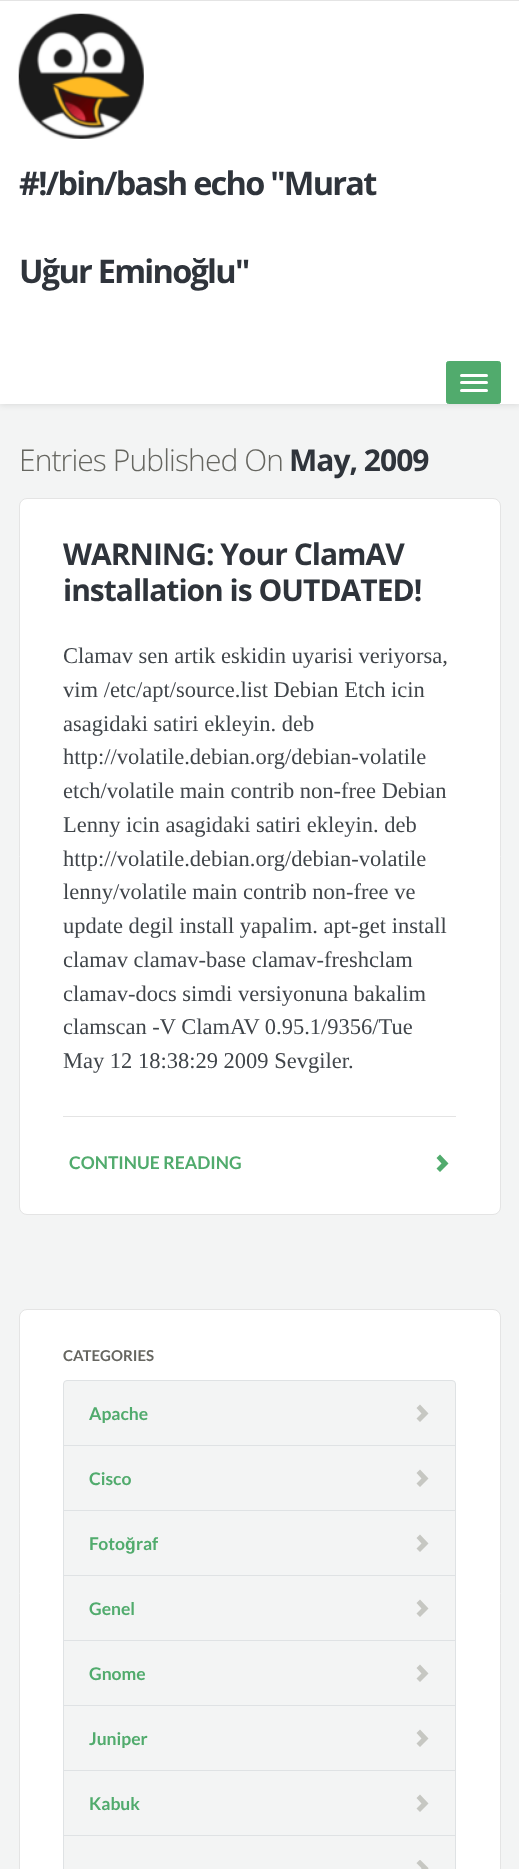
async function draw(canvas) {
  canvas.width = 519;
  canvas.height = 1869;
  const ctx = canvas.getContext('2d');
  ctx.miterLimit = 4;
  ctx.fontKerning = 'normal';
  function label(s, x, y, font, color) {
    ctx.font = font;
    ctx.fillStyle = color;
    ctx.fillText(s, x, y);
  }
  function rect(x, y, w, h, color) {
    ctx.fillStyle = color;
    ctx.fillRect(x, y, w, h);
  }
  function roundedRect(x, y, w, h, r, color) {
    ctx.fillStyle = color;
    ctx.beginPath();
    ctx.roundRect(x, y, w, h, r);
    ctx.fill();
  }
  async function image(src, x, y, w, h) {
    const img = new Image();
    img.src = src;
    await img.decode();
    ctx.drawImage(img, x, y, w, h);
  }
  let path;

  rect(0, 0, 519, 1869, '#f3f4f4');
  ctx.fillStyle = '#0000001a';
  ctx.filter = 'blur(3px)';
  ctx.beginPath();
  ctx.rect(0, 1, 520, 404);
  ctx.fill();
  ctx.filter = 'none';
  rect(0, 1, 519, 403, '#fff');
  rect(0, 0, 519, 1, '#e4e4e4');
  await image('assets/img1.png', 18, 13, 126, 126);
  ctx.letterSpacing = '-1.75px';
  label('#!/bin/bash echo "Murat', 19, 195, 'bold 32.5px Open Sans', '#2f343b');
  label('Uğur Eminoğlu"', 19, 283, 'bold 32.5px Open Sans', '#2f343b');
  ctx.fillStyle = '#51ab6d';
  ctx.beginPath();
  ctx.roundRect(446.5, 361.5, 54, 42, 2);
  ctx.fill();
  ctx.strokeStyle = '#51ab6d';
  ctx.stroke();
  roundedRect(460, 374, 28, 3, 1.5, '#fff');
  roundedRect(460, 381, 28, 3, 1.5, '#fff');
  roundedRect(460, 389, 28, 3, 1.5, '#fff');
  ctx.letterSpacing = '-0.9px';
  label('Entries Published On', 19, 471, '300 30px Open Sans', '#666660');
  ctx.letterSpacing = '-1px';
  label('May, 2009', 289, 471, 'bold 30px Open Sans', '#2f343b');
  ctx.fillStyle = '#fff';
  ctx.beginPath();
  ctx.roundRect(19.5, 498.5, 481, 716, 7.5);
  ctx.fill();
  ctx.strokeStyle = '#e4e4e4';
  ctx.stroke();
  label('WARNING: Your ClamAV', 63, 565, 'bold 30px Open Sans', '#2f343b');
  label('installation is OUTDATED!', 63, 601, 'bold 30px Open Sans', '#2f343b');
  ctx.letterSpacing = '0px';
  label('Clamav sen artik eskidin uyarisi veriyorsa,', 63, 663, '22.5px Liberation Serif', '#40454a');
  label('vim /etc/apt/source.list Debian Etch icin', 63, 697, '22.5px Liberation Serif', '#40454a');
  label('asagidaki satiri ekleyin. deb', 63, 731, '22.5px Liberation Serif', '#40454a');
  label('http://volatile.debian.org/debian-volatile', 63, 764, '22.5px Liberation Serif', '#40454a');
  label('etch/volatile main contrib non-free Debian', 63, 798, '22.5px Liberation Serif', '#40454a');
  label('Lenny icin asagidaki satiri ekleyin. deb', 63, 832, '22.5px Liberation Serif', '#40454a');
  label('http://volatile.debian.org/debian-volatile', 63, 866, '22.5px Liberation Serif', '#40454a');
  label('lenny/volatile main contrib non-free ve', 63, 899, '22.5px Liberation Serif', '#40454a');
  label('update degil install yapalim. apt-get install', 63, 933, '22.5px Liberation Serif', '#40454a');
  label('clamav clamav-base clamav-freshclam', 63, 967, '22.5px Liberation Serif', '#40454a');
  label('clamav-docs simdi versiyonuna bakalim', 63, 1001, '22.5px Liberation Serif', '#40454a');
  label('clamscan -V ClamAV 0.95.1/9356/Tue', 63, 1034, '22.5px Liberation Serif', '#40454a');
  label('May 12 18:38:29 2009 Sevgiler.', 63, 1068, '22.5px Liberation Serif', '#40454a');
  rect(63, 1116, 393, 1, '#e4e4e4');
  label('CONTINUE READING', 69, 1169, 'bold 17.5px Lato', '#51ab6d');
  path = new Path2D('M436.5 1168.5L441.5 1163.5L436.5 1158L440 1154.5L448.5 1163.5L440 1172Z');
  ctx.fill(path);
  ctx.fillStyle = '#fff';
  ctx.beginPath();
  ctx.roundRect(19.5, 1309.5, 481, 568, 7.5);
  ctx.fill();
  ctx.stroke();
  label('CATEGORIES', 63, 1361, 'bold 15px Lato', '#666660');
  ctx.fillStyle = '#f3f4f4';
  ctx.beginPath();
  ctx.roundRect(63.5, 1380.5, 392, 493, 3.5);
  ctx.fill();
  ctx.strokeStyle = '#dfe2e4';
  ctx.stroke();
  rect(64, 1445, 391, 1, '#dfe2e4');
  label('Apache', 89, 1420, 'bold 17.5px Lato', '#51ab6d');
  ctx.fillStyle = '#c6c7c2';
  path = new Path2D('M416.5 1418.5L421.5 1413.5L416.5 1408L420 1404.5L428.5 1413.5L420 1422Z');
  ctx.fill(path);
  rect(64, 1510, 391, 1, '#dfe2e4');
  label('Cisco', 89, 1485, 'bold 17.5px Lato', '#51ab6d');
  ctx.fillStyle = '#c6c7c2';
  path = new Path2D('M416.5 1483.5L421.5 1478.5L416.5 1473L420 1469.5L428.5 1478.5L420 1487Z');
  ctx.fill(path);
  rect(64, 1575, 391, 1, '#dfe2e4');
  label('Foto', 89, 1550, 'bold 17.5px Lato', '#51ab6d');
  label('ğ', 125, 1550, 'bold 17.5px Liberation Sans', '#51ab6d');
  label('raf', 136, 1550, 'bold 17.5px Lato', '#51ab6d');
  ctx.fillStyle = '#c6c7c2';
  path = new Path2D('M416.5 1548.5L421.5 1543.5L416.5 1538L420 1534.5L428.5 1543.5L420 1552Z');
  ctx.fill(path);
  rect(64, 1640, 391, 1, '#dfe2e4');
  label('Genel', 89, 1615, 'bold 17.5px Lato', '#51ab6d');
  ctx.fillStyle = '#c6c7c2';
  path = new Path2D('M416.5 1613.5L421.5 1608.5L416.5 1603L420 1599.5L428.5 1608.5L420 1617Z');
  ctx.fill(path);
  rect(64, 1705, 391, 1, '#dfe2e4');
  label('Gnome', 89, 1680, 'bold 17.5px Lato', '#51ab6d');
  ctx.fillStyle = '#c6c7c2';
  path = new Path2D('M416.5 1678.5L421.5 1673.5L416.5 1668L420 1664.5L428.5 1673.5L420 1682Z');
  ctx.fill(path);
  rect(64, 1770, 391, 1, '#dfe2e4');
  label('Juniper', 89, 1745, 'bold 17.5px Lato', '#51ab6d');
  ctx.fillStyle = '#c6c7c2';
  path = new Path2D('M416.5 1743.5L421.5 1738.5L416.5 1733L420 1729.5L428.5 1738.5L420 1747Z');
  ctx.fill(path);
  rect(64, 1835, 391, 1, '#dfe2e4');
  label('Kabuk', 89, 1810, 'bold 17.5px Lato', '#51ab6d');
  ctx.fillStyle = '#c6c7c2';
  path = new Path2D('M416.5 1808.5L421.5 1803.5L416.5 1798L420 1794.5L428.5 1803.5L420 1812Z');
  ctx.fill(path);
  await image('assets/img2.png', 416, 1860, 13, 9);
}

draw(document.querySelector('canvas'));
